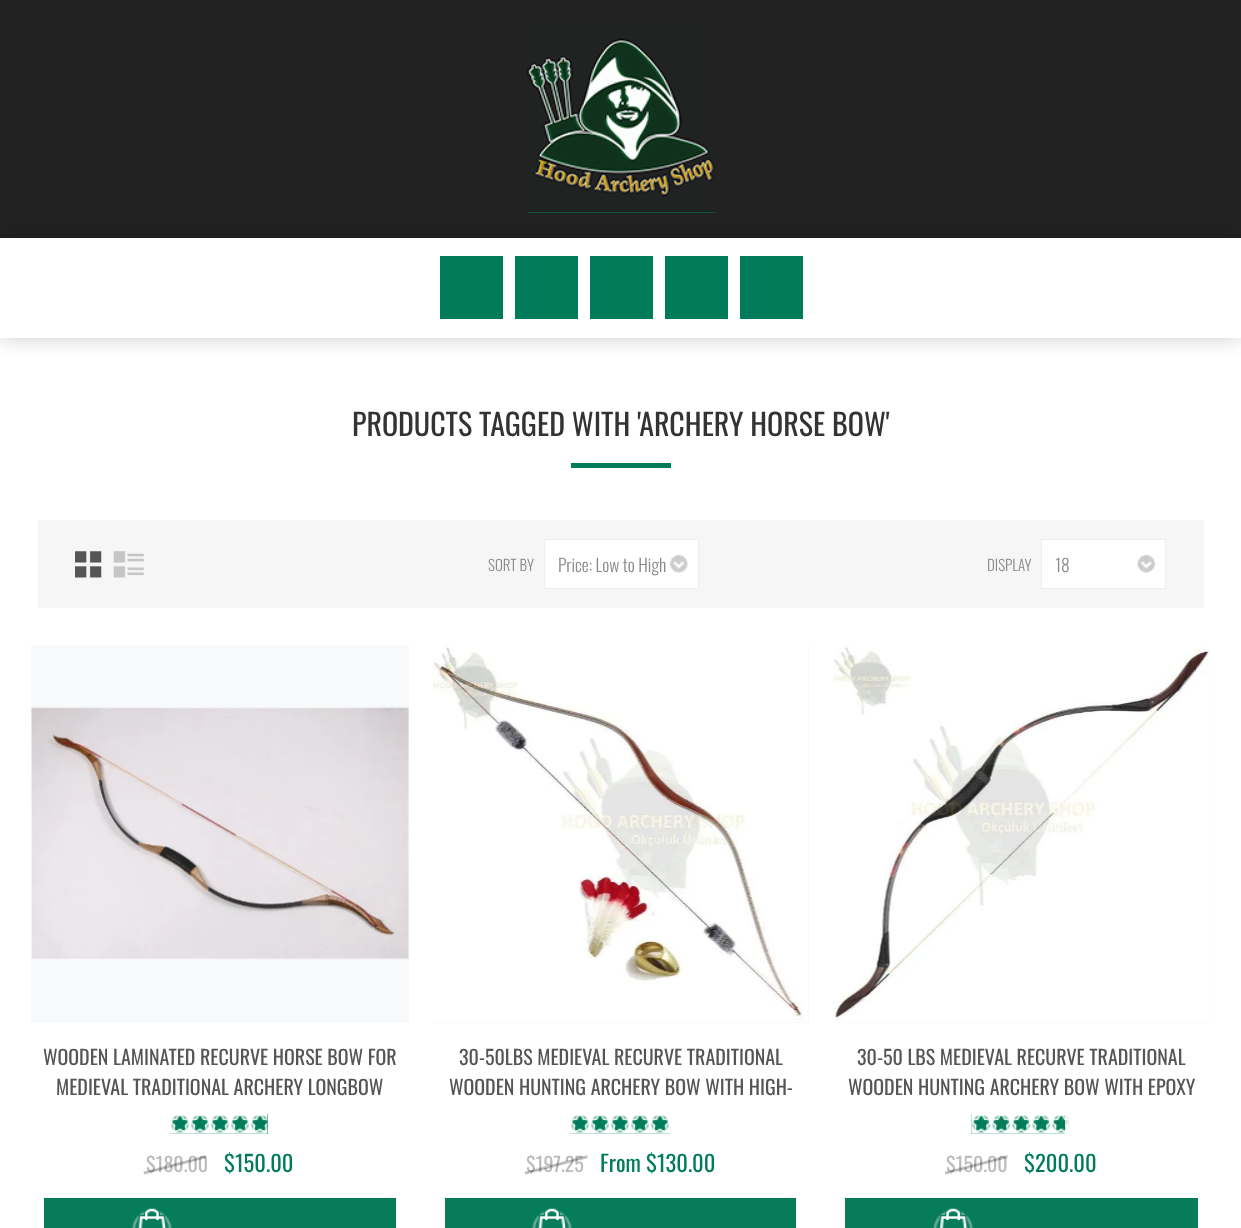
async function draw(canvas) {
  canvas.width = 1241;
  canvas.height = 1228;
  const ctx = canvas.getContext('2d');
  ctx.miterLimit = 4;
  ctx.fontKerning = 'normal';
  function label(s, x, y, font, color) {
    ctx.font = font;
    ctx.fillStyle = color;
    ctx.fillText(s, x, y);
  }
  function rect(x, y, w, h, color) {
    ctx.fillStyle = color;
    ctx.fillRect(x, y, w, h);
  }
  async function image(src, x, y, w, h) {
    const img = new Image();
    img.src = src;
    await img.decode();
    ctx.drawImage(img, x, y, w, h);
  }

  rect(0, 0, 1241, 1228, '#fff');
  rect(0, 0, 1241, 238, '#222');
  rect(528, 25, 187, 188, '#007b59');
  await image('assets/img1.png', 527, 25, 188, 188);
  ctx.fillStyle = '#00000033';
  ctx.filter = 'blur(9.5px)';
  ctx.beginPath();
  ctx.rect(0, 238, 1241, 100);
  ctx.fill();
  ctx.filter = 'none';
  rect(0, 238, 1241, 100, '#fff');
  rect(440, 256, 63, 63, '#007c5a');
  rect(515, 256, 63, 63, '#007c5a');
  rect(590, 256, 63, 63, '#007c5a');
  rect(665, 256, 63, 63, '#007c5a');
  rect(740, 256, 63, 63, '#007c5a');
  label('PRODUCTS TAGGED WITH \'ARCHERY HORSE BOW\'', 352, 436, '30px Oswald', '#333');
  rect(571, 463, 100, 5, '#007c5a');
  rect(38, 520, 1166, 88, '#f6f6f6');
  await image('assets/img2.png', 75, 551, 27, 27);
  await image('assets/img3.png', 113, 551, 31, 27);
  label('SORT BY', 488, 571, '300 15px Oswald', '#888');
  rect(545, 540, 153, 48, '#fff');
  await image('assets/img4.png', 670, 555, 18, 18);
  ctx.strokeStyle = '#eee';
  ctx.strokeRect(544.5, 539.5, 154, 49);
  label('Price: Low to High', 558, 572, '300 17.5px Oswald', '#888');
  label('DISPLAY', 987, 571, '300 15px Oswald', '#888');
  rect(1042, 540, 123, 48, '#fff');
  await image('assets/img5.png', 1137, 555, 18, 18);
  ctx.strokeRect(1041.5, 539.5, 124, 49);
  label('18', 1055, 572, '300 17.5px Oswald', '#888');
  rect(31, 645, 378, 378, '#f8f9fa');
  await image('assets/img6.png', 31, 707, 378, 253);
  label('WOODEN LAMINATED RECURVE HORSE BOW FOR', 43, 1065, '20px Oswald', '#555');
  label('MEDIEVAL TRADITIONAL ARCHERY LONGBOW', 56, 1095, '20px Oswald', '#555');
  await image('assets/img7.png', 268, 1115, 1, 18);
  rect(170, 1114, 98, 20, '#007c5a');
  await image('assets/img8.png', 170, 1114, 98, 20);
  label('$180.00', 146, 1172, '20px Oswald', '#bbb');
  await image('assets/img9.png', 143, 1155, 64, 20);
  label('$150.00', 224, 1172, '22.5px Oswald', '#007c5a');
  rect(44, 1198, 352, 30, '#077c5a');
  await image('assets/img10.png', 132, 1208, 40, 20);
  rect(433, 645, 376, 378, '#f8f9fa');
  await image('assets/img11.png', 433, 645, 375, 377);
  label('30-50LBS MEDIEVAL RECURVE TRADITIONAL', 459, 1065, '20px Oswald', '#555');
  label('WOODEN HUNTING ARCHERY BOW WITH HIGH-', 449, 1095, '20px Oswald', '#555');
  rect(570, 1114, 100, 20, '#007c5a');
  await image('assets/img12.png', 570, 1114, 100, 20);
  label('$197.25', 526, 1172, '20px Oswald', '#bbb');
  await image('assets/img13.png', 525, 1155, 63, 20);
  label('From $130.00', 600, 1172, '22.5px Oswald', '#007c5a');
  rect(445, 1198, 351, 30, '#077c5a');
  await image('assets/img14.png', 532, 1208, 40, 20);
  rect(833, 645, 377, 378, '#f8f9fa');
  await image('assets/img15.png', 832, 645, 378, 377);
  label('30-50 LBS MEDIEVAL RECURVE TRADITIONAL', 857, 1065, '20px Oswald', '#555');
  label('WOODEN HUNTING ARCHERY BOW WITH EPOXY', 848, 1095, '20px Oswald', '#555');
  await image('assets/img16.png', 1065, 1115, 5, 18);
  rect(971, 1114, 94, 20, '#007c5a');
  await image('assets/img17.png', 971, 1114, 94, 20);
  label('$150.00', 946, 1172, '20px Oswald', '#bbb');
  await image('assets/img18.png', 945, 1155, 63, 20);
  label('$200.00', 1024, 1172, '22.5px Oswald', '#007c5a');
  rect(845, 1198, 353, 30, '#077c5a');
  await image('assets/img19.png', 933, 1208, 40, 20);
}

draw(document.querySelector('canvas'));
